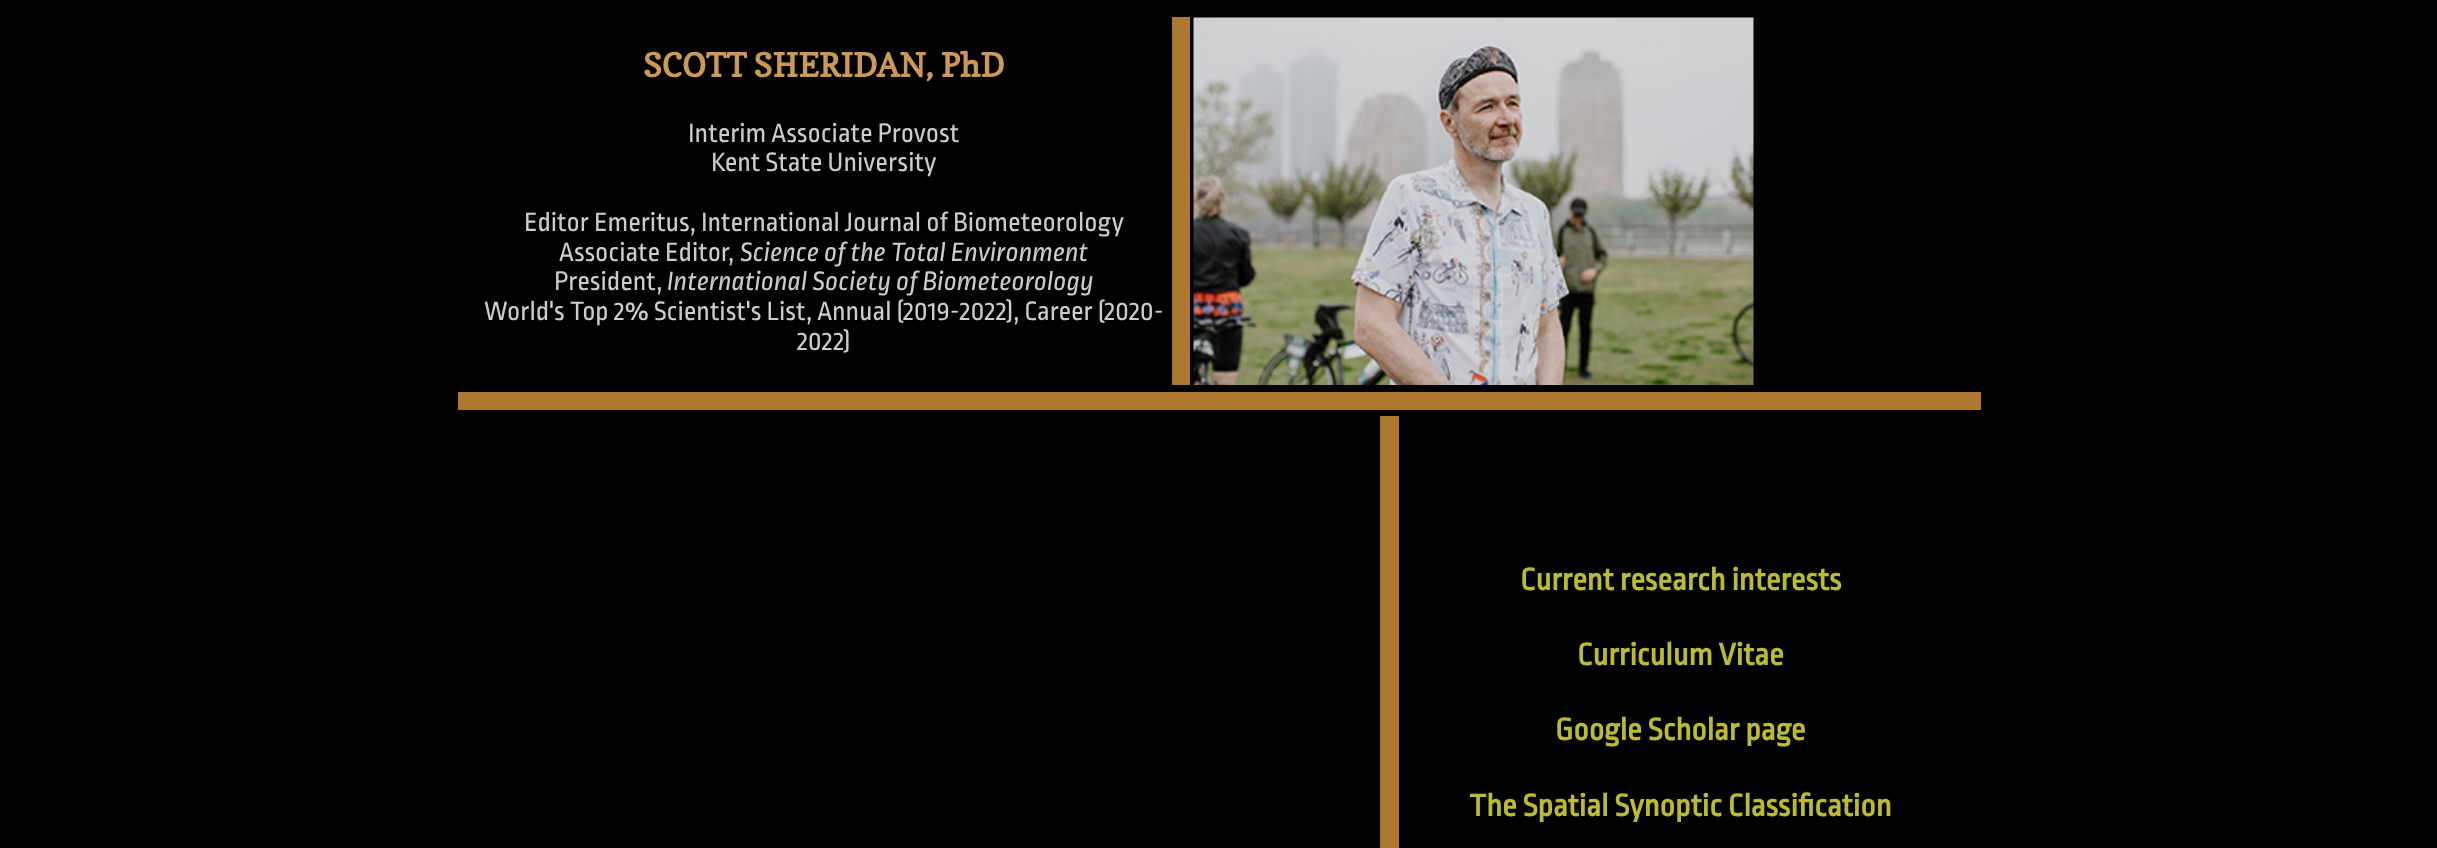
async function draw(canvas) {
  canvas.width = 2437;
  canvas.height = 848;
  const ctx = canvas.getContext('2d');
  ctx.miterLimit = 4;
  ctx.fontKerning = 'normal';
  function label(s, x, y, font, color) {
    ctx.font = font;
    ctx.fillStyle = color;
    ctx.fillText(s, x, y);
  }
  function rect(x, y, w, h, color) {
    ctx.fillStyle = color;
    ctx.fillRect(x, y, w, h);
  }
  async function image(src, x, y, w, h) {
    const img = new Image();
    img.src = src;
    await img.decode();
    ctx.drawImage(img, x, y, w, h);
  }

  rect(0, 0, 2437, 848, '#000');
  label('SCOTT SHERIDAN, PhD', 643, 77, 'bold 32.75px Copse', '#c95');
  label('Interim Associate Provost', 688, 142, '28px Ropa Sans', '#ccc');
  label('Kent State University', 711, 171, '28px Ropa Sans', '#ccc');
  label('Editor Emeritus, International Journal of Biometeorology', 524, 231, '28px Ropa Sans', '#ccc');
  label('Associate Editor,', 559, 261, '28px Ropa Sans', '#ccc');
  label('Science of the Total Environment', 740, 261, 'italic 28px Ropa Sans', '#ccc');
  label('President,', 554, 290, '28px Ropa Sans', '#ccc');
  label('International Society of Biometeorology', 667, 290, 'italic 28px Ropa Sans', '#ccc');
  label('World\'s Top 2% Scientist\'s List, Annual (2019-2022), Career (2020-', 484, 320, '28px Ropa Sans', '#ccc');
  label('2022)', 797, 350, '28px Ropa Sans', '#ccc');
  rect(1172, 17, 18, 368, '#ae7830');
  await image('assets/img1.png', 1193, 17, 561, 368);
  rect(458, 392, 1523, 18, '#ae7830');
  rect(1380, 416, 19, 432, '#ae7830');
  label('Current research interests', 1520, 590, 'bold 32.75px Ropa Sans', '#bb3');
  label('Curriculum Vitae', 1577, 665, 'bold 32.75px Ropa Sans', '#bb3');
  label('Google Scholar page', 1555, 740, 'bold 32.75px Ropa Sans', '#bb3');
  label('The Spatial Synoptic Classification', 1469, 816, 'bold 32.75px Ropa Sans', '#bb3');
}

draw(document.querySelector('canvas'));
